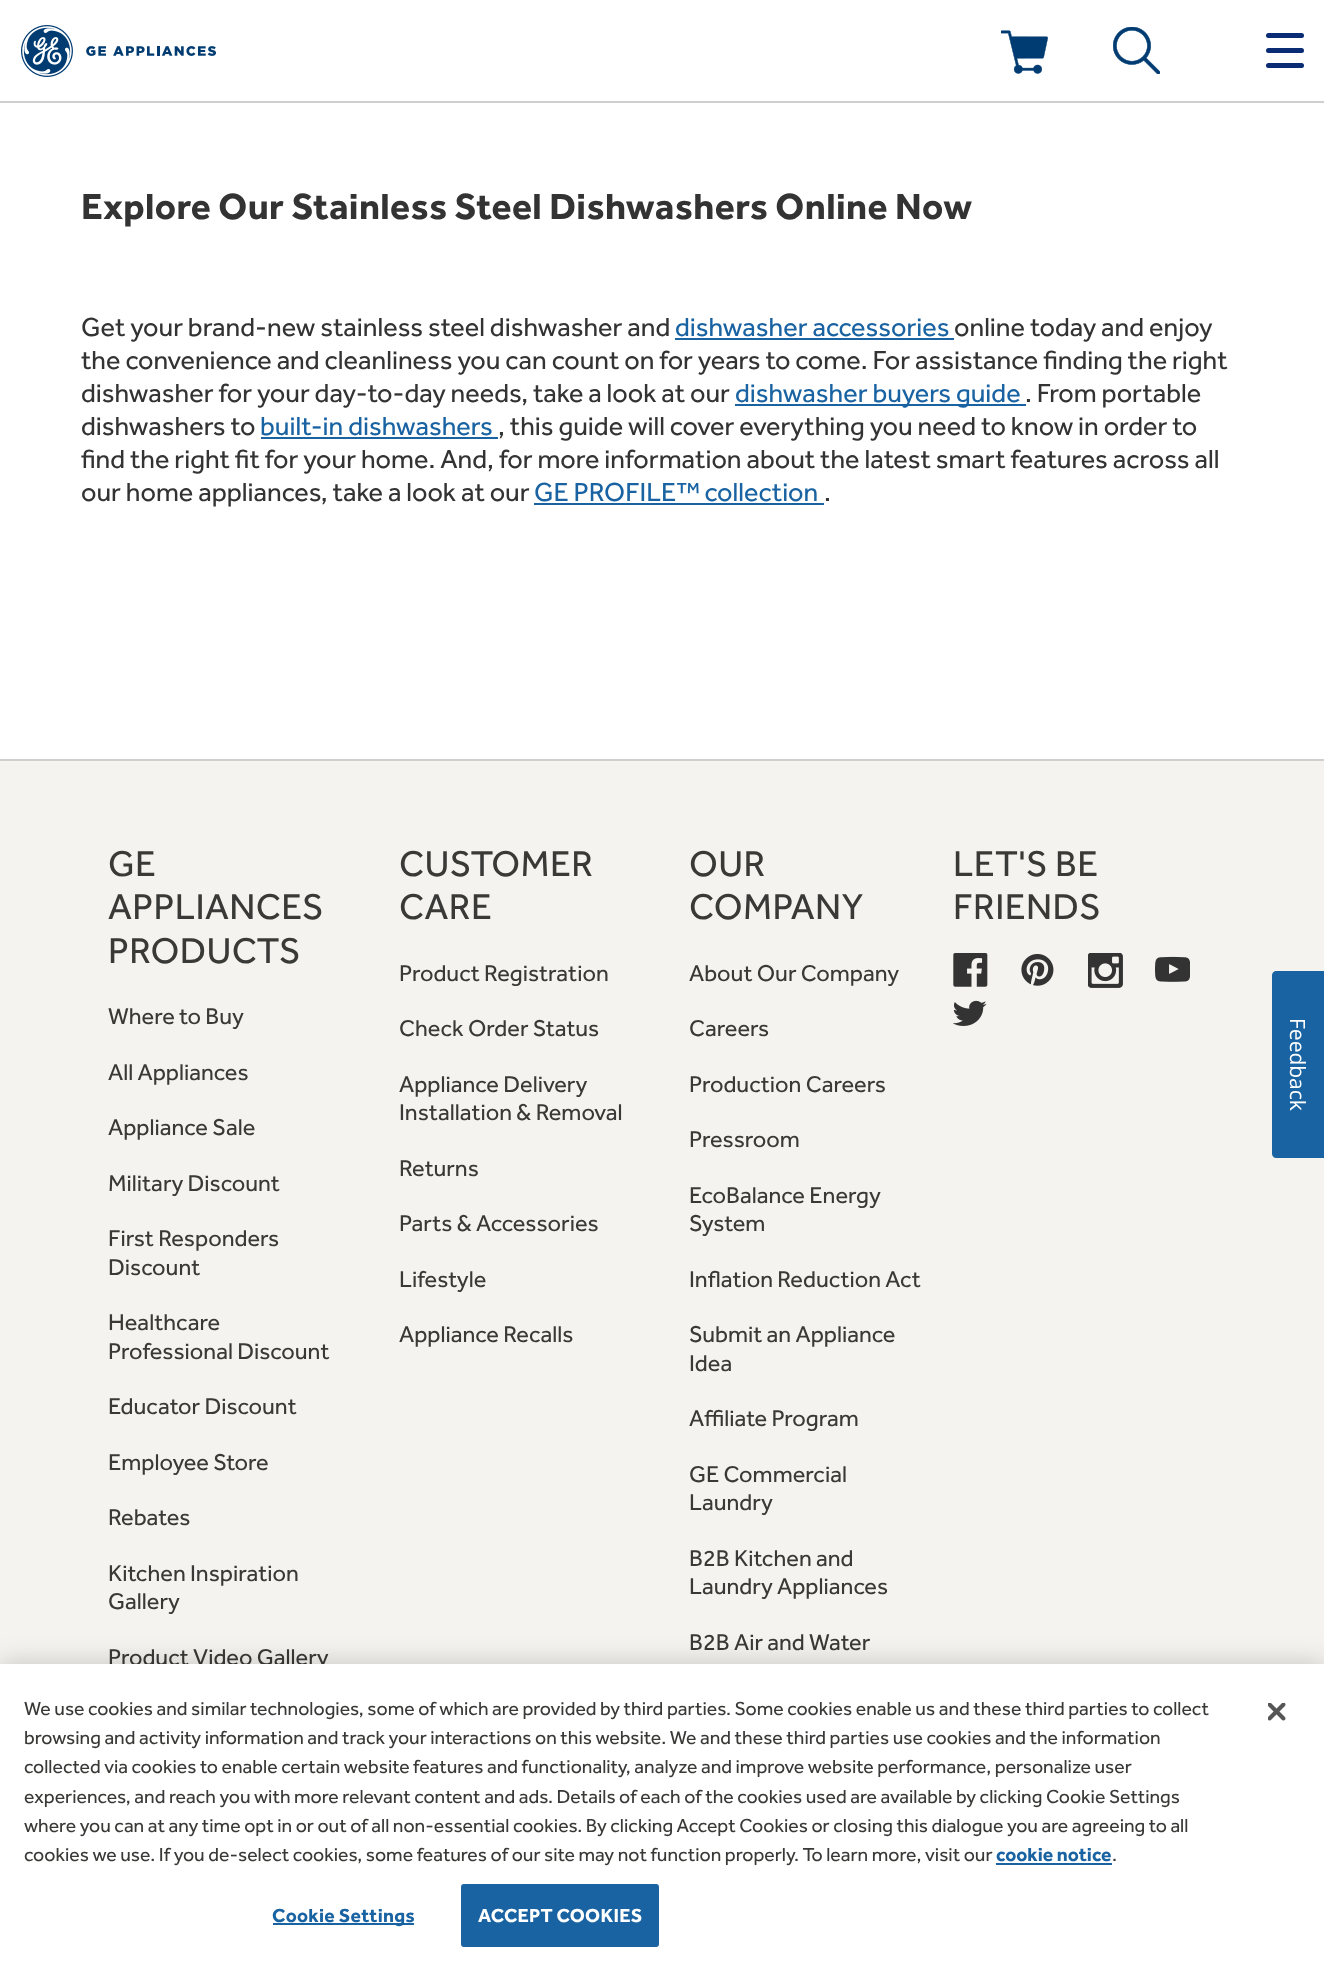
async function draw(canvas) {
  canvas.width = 1324;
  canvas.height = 1974;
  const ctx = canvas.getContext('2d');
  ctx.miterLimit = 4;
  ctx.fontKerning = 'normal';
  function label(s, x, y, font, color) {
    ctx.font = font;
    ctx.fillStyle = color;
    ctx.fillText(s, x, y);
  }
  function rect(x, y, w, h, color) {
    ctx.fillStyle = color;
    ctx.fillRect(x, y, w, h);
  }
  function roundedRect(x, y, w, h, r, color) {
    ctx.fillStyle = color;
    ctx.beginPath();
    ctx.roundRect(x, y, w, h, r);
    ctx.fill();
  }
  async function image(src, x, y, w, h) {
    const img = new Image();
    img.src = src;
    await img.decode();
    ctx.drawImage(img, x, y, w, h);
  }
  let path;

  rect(0, 0, 1324, 1974, '#fff');
  rect(0, 101, 1324, 2, '#cfcfcf');
  await image('assets/img1.png', 21, 25, 195, 52);
  roundedRect(1266, 33, 38, 5, 2.5, '#092c74');
  roundedRect(1266, 48, 38, 5, 2.5, '#092c74');
  roundedRect(1266, 63, 38, 5, 2.5, '#092c74');
  await image('assets/img2.png', 1001, 30, 47, 44);
  await image('assets/img3.png', 1113, 27, 47, 47);
  ctx.letterSpacing = '0.38px';
  label('Explore Our Stainless Steel Dishwashers Online Now', 81, 219, 'bold 37.5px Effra', '#333');
  ctx.letterSpacing = '0px';
  label('Get your brand-new stainless steel dishwasher and', 81, 336, '27px Effra', '#333');
  label('dishwasher accessories', 675, 336, '27px Effra', '#1a63a2');
  rect(675, 338, 279, 2, '#1a63a2');
  label('online today and enjoy', 954, 336, '27px Effra', '#333');
  label('the convenience and cleanliness you can count on for years to come. For assistance finding the right', 81, 369, '27px Effra', '#333');
  label('dishwasher for your day-to-day needs, take a look at our', 81, 402, '27px Effra', '#333');
  rect(735, 404, 291, 2, '#1a63a2');
  label('dishwasher buyers guide', 735, 402, '27px Effra', '#1a63a2');
  label('. From portable', 1025, 402, '27px Effra', '#333');
  label('dishwashers to', 81, 435, '27px Effra', '#333');
  label('built-in dishwashers', 260, 435, '27px Effra', '#1a63a2');
  rect(261, 437, 237, 2, '#1a63a2');
  label(', this guide will cover everything you need to know in order to', 498, 435, '27px Effra', '#333');
  label('find the right fit for your home. And, for more information about the latest smart features across all', 81, 468, '27px Effra', '#333');
  label('our home appliances, take a look at our', 81, 501, '27px Effra', '#333');
  label('GE PROFILE™ collection', 534, 501, '27px Effra', '#1a63a2');
  rect(534, 503, 290, 2, '#1a63a2');
  label('.', 824, 501, '27px Effra', '#333');
  rect(0, 761, 1324, 903, '#f4f3ef');
  rect(0, 759, 1324, 2, '#cfcfcf');
  ctx.letterSpacing = '0.38px';
  label('GE', 108, 876, '37px Effra', '#393a37');
  label('APPLIANCES', 108, 919, '37px Effra', '#393a37');
  label('PRODUCTS', 108, 963, '37px Effra', '#393a37');
  ctx.letterSpacing = '0px';
  label('Where to Buy', 108, 1024, '23.6px Effra', '#393a37');
  label('All Appliances', 108, 1080, '23.6px Effra', '#393a37');
  label('Appliance Sale', 108, 1135, '23.6px Effra', '#393a37');
  label('Military Discount', 108, 1191, '23.6px Effra', '#393a37');
  label('First Responders', 108, 1246, '23.6px Effra', '#393a37');
  label('Discount', 108, 1275, '23.6px Effra', '#393a37');
  label('Healthcare', 108, 1330, '23.6px Effra', '#393a37');
  label('Professional Discount', 108, 1359, '23.6px Effra', '#393a37');
  label('Educator Discount', 108, 1414, '23.6px Effra', '#393a37');
  label('Employee Store', 108, 1470, '23.6px Effra', '#393a37');
  label('Rebates', 108, 1525, '23.6px Effra', '#393a37');
  label('Kitchen Inspiration', 108, 1581, '23.6px Effra', '#393a37');
  label('Gallery', 108, 1609, '23.6px Effra', '#393a37');
  label('Product Video Gallery', 108, 1665, '23.6px Effra', '#393a37');
  ctx.letterSpacing = '0.38px';
  label('CUSTOMER', 399, 876, '37px Effra', '#393a37');
  label('CARE', 399, 919, '37px Effra', '#393a37');
  ctx.letterSpacing = '0px';
  label('Product Registration', 399, 981, '23.6px Effra', '#393a37');
  label('Check Order Status', 399, 1036, '23.6px Effra', '#393a37');
  label('Appliance Delivery', 399, 1092, '23.6px Effra', '#393a37');
  label('Installation & Removal', 399, 1120, '23.6px Effra', '#393a37');
  label('Returns', 399, 1176, '23.6px Effra', '#393a37');
  label('Parts & Accessories', 399, 1231, '23.6px Effra', '#393a37');
  label('Lifestyle', 399, 1287, '23.6px Effra', '#393a37');
  label('Appliance Recalls', 399, 1342, '23.6px Effra', '#393a37');
  ctx.letterSpacing = '0.38px';
  label('OUR', 689, 876, '37px Effra', '#393a37');
  label('COMPANY', 689, 919, '37px Effra', '#393a37');
  ctx.letterSpacing = '0px';
  label('About Our Company', 689, 981, '23.6px Effra', '#393a37');
  label('Careers', 689, 1036, '23.6px Effra', '#393a37');
  label('Production Careers', 689, 1092, '23.6px Effra', '#393a37');
  label('Pressroom', 689, 1147, '23.6px Effra', '#393a37');
  label('EcoBalance Energy', 689, 1203, '23.6px Effra', '#393a37');
  label('System', 689, 1231, '23.6px Effra', '#393a37');
  label('Inflation Reduction Act', 689, 1287, '23.6px Effra', '#393a37');
  label('Submit an Appliance', 689, 1342, '23.6px Effra', '#393a37');
  label('Idea', 689, 1371, '23.6px Effra', '#393a37');
  label('Affiliate Program', 689, 1426, '23.6px Effra', '#393a37');
  label('GE Commercial', 689, 1482, '23.6px Effra', '#393a37');
  label('Laundry', 689, 1510, '23.6px Effra', '#393a37');
  label('B2B Kitchen and', 689, 1566, '23.6px Effra', '#393a37');
  label('Laundry Appliances', 689, 1594, '23.6px Effra', '#393a37');
  label('B2B Air and Water', 689, 1650, '23.6px Effra', '#393a37');
  ctx.letterSpacing = '0.38px';
  label('LET\'S BE', 953, 876, '37px Effra', '#393a37');
  label('FRIENDS', 953, 919, '37px Effra', '#393a37');
  await image('assets/img4.png', 953, 953, 35, 34);
  await image('assets/img5.png', 1021, 954, 33, 32);
  await image('assets/img6.png', 1088, 953, 35, 35);
  await image('assets/img7.png', 1155, 956, 35, 26);
  await image('assets/img8.png', 953, 1000, 34, 26);
  ctx.fillStyle = '#1a63a2';
  path = new Path2D('M1324 971V1158H1276C1274 1158 1272 1156 1272 1154V975C1272 973 1274 971 1276 971Z');
  ctx.fill(path);
  ctx.letterSpacing = '0px';
  ctx.font = '21px Open Sans';
  ctx.fillStyle = '#fff';
  ctx.save();
  ctx.translate(1290, 1018);
  ctx.rotate(90 * Math.PI / 180);
  ctx.fillText('Feedback', 0, 0);
  ctx.restore();
  ctx.fillStyle = '#00000033';
  ctx.filter = 'blur(13.5px)';
  ctx.beginPath();
  ctx.rect(0, 1664, 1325, 310);
  ctx.fill();
  ctx.filter = 'none';
  rect(0, 1664, 1324, 310, '#fff');
  label('We use cookies and similar technologies, some of which are provided by third parties. Some cookies enable us and these third parties to collect', 24, 1715, '19.5px Effra', '#393a37');
  label('browsing and activity information and track your interactions on this website. We and these third parties use cookies and the information', 24, 1744, '19.5px Effra', '#393a37');
  label('collected via cookies to enable certain website features and functionality, analyze and improve website performance, personalize user', 24, 1773, '19.5px Effra', '#393a37');
  label('experiences, and reach you with more relevant content and ads. Details of each of the cookies used are available by clicking Cookie Settings', 24, 1803, '19.5px Effra', '#393a37');
  label('where you can at any time opt in or out of all non-essential cookies. By clicking Accept Cookies or closing this dialogue you are agreeing to all', 24, 1832, '19.5px Effra', '#393a37');
  label('cookies we use. If you de-select cookies, some features of our site may not function properly. To learn more, visit our', 24, 1861, '19.5px Effra', '#393a37');
  label('cookie notice', 996, 1861, 'bold 19.5px Effra', '#1a63a2');
  rect(996, 1863, 116, 2, '#1a63a2');
  label('.', 1112, 1861, '19.5px Effra', '#393a37');
  rect(273, 1923, 141, 2, '#1a63a2');
  ctx.letterSpacing = '0.25px';
  label('Cookie Settings', 272, 1922, 'bold 19.5px Effra', '#1a63a2');
  ctx.beginPath();
  ctx.roundRect(462, 1885, 196, 61, 2);
  ctx.fill();
  ctx.strokeStyle = '#1a63a2';
  ctx.lineWidth = 2;
  ctx.stroke();
  label('ACCEPT COOKIES', 478, 1922, 'bold 19.5px Effra', '#fff');
  await image('assets/img9.png', 1268, 1703, 18, 18);
}

draw(document.querySelector('canvas'));
